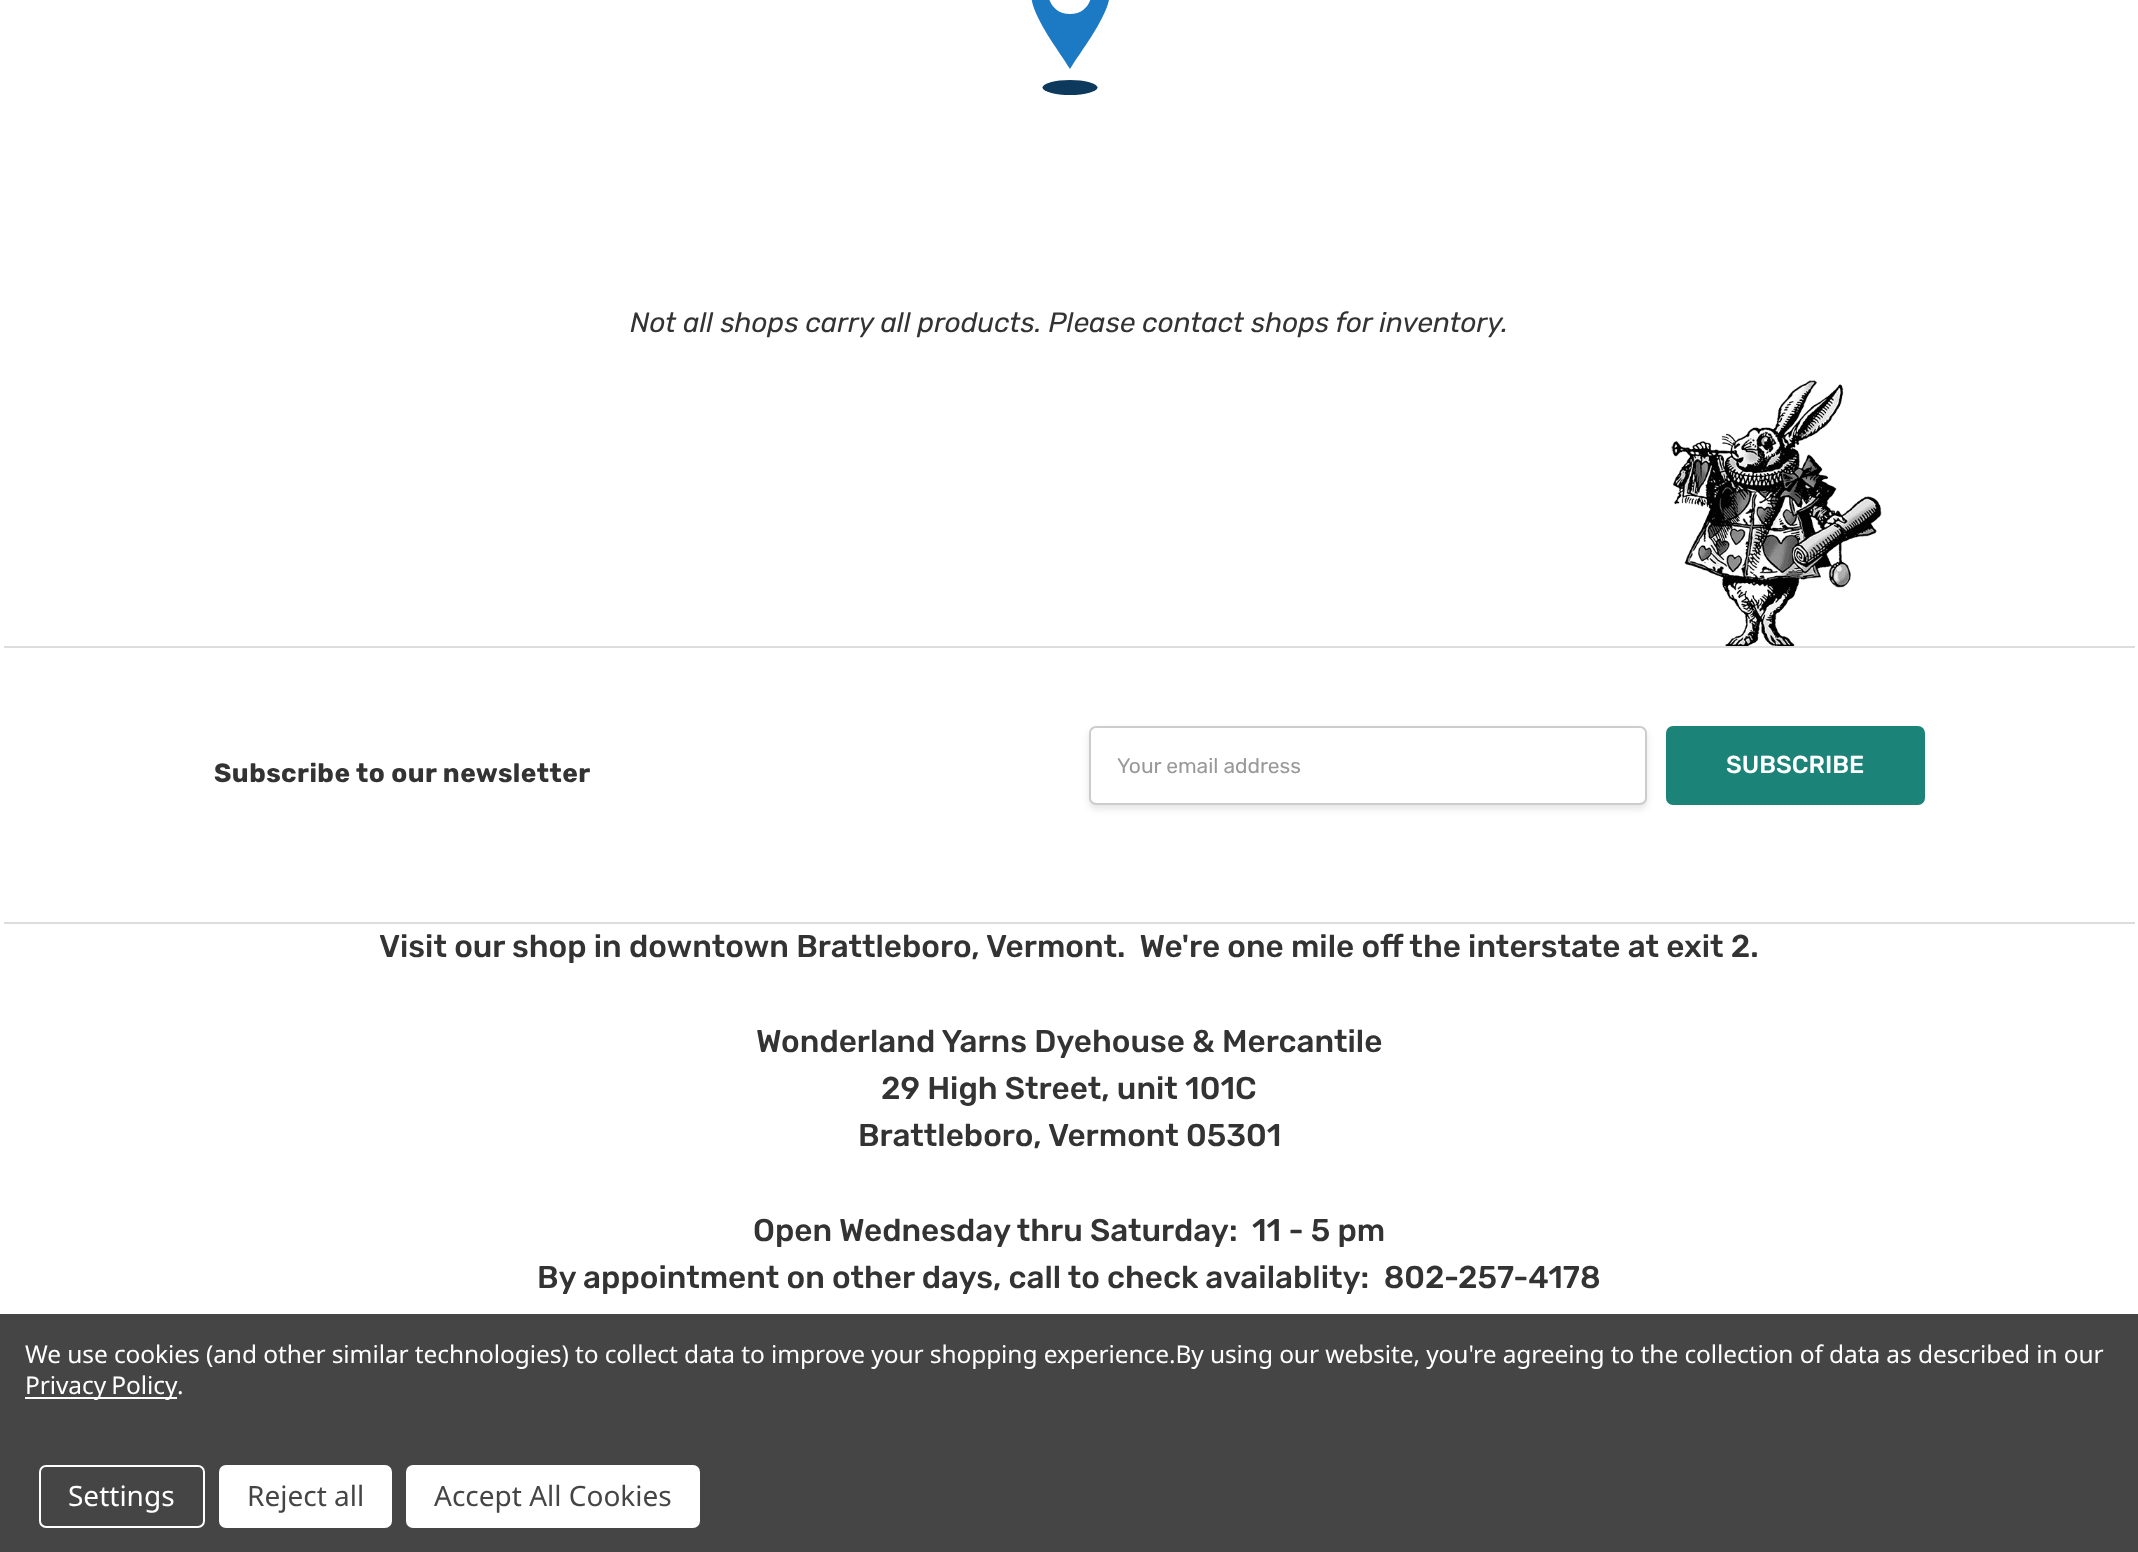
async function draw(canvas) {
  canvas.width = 2138;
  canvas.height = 1552;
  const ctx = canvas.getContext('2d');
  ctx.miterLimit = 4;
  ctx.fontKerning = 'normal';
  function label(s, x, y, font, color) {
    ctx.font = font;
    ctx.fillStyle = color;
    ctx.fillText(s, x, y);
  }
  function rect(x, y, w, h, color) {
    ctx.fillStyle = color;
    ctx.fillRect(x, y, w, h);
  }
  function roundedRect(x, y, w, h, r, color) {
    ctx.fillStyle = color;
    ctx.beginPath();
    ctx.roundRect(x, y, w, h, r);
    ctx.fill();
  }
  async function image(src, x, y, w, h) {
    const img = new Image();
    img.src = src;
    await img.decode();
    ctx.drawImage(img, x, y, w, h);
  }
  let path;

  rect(0, 0, 2138, 1552, '#fff');
  ctx.fillStyle = '#1c79c4';
  path = new Path2D('M1070 69C1057 48 1030 14 1031-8C1031-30 1048-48 1070-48C1092-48 1109-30 1110-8C1110 14 1083 48 1070 69ZM1070-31C1040-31 1041 14 1070 14C1099 14 1099-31 1070-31Z');
  ctx.fill(path);
  ctx.fillStyle = '#0d395c';
  ctx.beginPath();
  ctx.ellipse(1070, 87.5, 27.5, 7.5, 0, 0, 2 * Math.PI);
  ctx.fill();
  label('Not all shops carry all products. Please contact shops for inventory.', 630, 332, 'italic 28px Rubik', '#333');
  await image('assets/img1.png', 1671, 380, 211, 266);
  rect(4, 646, 2131, 2, '#ddd');
  rect(4, 922, 2131, 2, '#ddd');
  ctx.letterSpacing = '0.45px';
  label('Subscribe to our newsletter', 214, 782, 'bold 26.25px Rubik', '#333');
  ctx.fillStyle = '#0000001a';
  ctx.filter = 'blur(3.5px)';
  ctx.beginPath();
  ctx.roundRect(1089, 730, 558, 79, 7);
  ctx.fill();
  ctx.filter = 'none';
  ctx.fillStyle = '#fff';
  ctx.beginPath();
  ctx.roundRect(1090, 727, 556, 77, 6);
  ctx.fill();
  ctx.strokeStyle = '#ccc';
  ctx.lineWidth = 2;
  ctx.stroke();
  ctx.letterSpacing = '0px';
  label('Your email address', 1117, 773, '21px Rubik', '#999');
  ctx.fillStyle = '#1c8378';
  ctx.beginPath();
  ctx.roundRect(1667, 727, 257, 77, 6);
  ctx.fill();
  ctx.strokeStyle = '#1c8378';
  ctx.stroke();
  label('SUBSCRIBE', 1726, 773, '500 24.5px Rubik', '#fff');
  label('Visit our shop in downtown Brattleboro, Vermont.  We\'re one mile off the interstate at exit 2.', 379, 957, '500 31.5px Rubik', '#333');
  label('Wonderland Yarns Dyehouse & Mercantile', 756, 1052, '500 31.5px Rubik', '#333');
  label('29 High Street, unit 101C', 881, 1099, '500 31.5px Rubik', '#333');
  label('Brattleboro, Vermont 05301', 858, 1146, '500 31.5px Rubik', '#333');
  label('Open Wednesday thru Saturday:  11 - 5 pm', 753, 1241, '500 31.5px Rubik', '#333');
  label('By appointment on other days, call to check availablity:  802-257-4178', 537, 1288, '500 31.5px Rubik', '#333');
  rect(0, 1314, 2138, 238, '#454545');
  ctx.letterSpacing = '-0.09px';
  label('We use cookies (and other similar technologies) to collect data to improve your shopping experience.By using our website, you\'re agreeing to the collection of data as described in our', 25, 1363, '24.5px Noto Sans', '#fff');
  rect(25, 1397, 152, 2, '#fff');
  ctx.wordSpacing = '-1px';
  label('Privacy Policy', 25, 1394, '24.5px Noto Sans', '#fff');
  ctx.wordSpacing = '0px';
  label('.', 177, 1394, '24.5px Noto Sans', '#fff');
  ctx.beginPath();
  ctx.roundRect(40, 1466, 164, 61, 6);
  ctx.strokeStyle = '#fff';
  ctx.stroke();
  ctx.letterSpacing = '0px';
  label('Settings', 68, 1506, '28px Noto Sans', '#fff');
  roundedRect(219, 1465, 173, 63, 7, '#fff');
  label('Reject all', 247, 1506, '28px Noto Sans', '#454545');
  roundedRect(406, 1465, 294, 63, 7, '#fff');
  label('Accept All Cookies', 434, 1506, '28px Noto Sans', '#454545');
}

draw(document.querySelector('canvas'));
